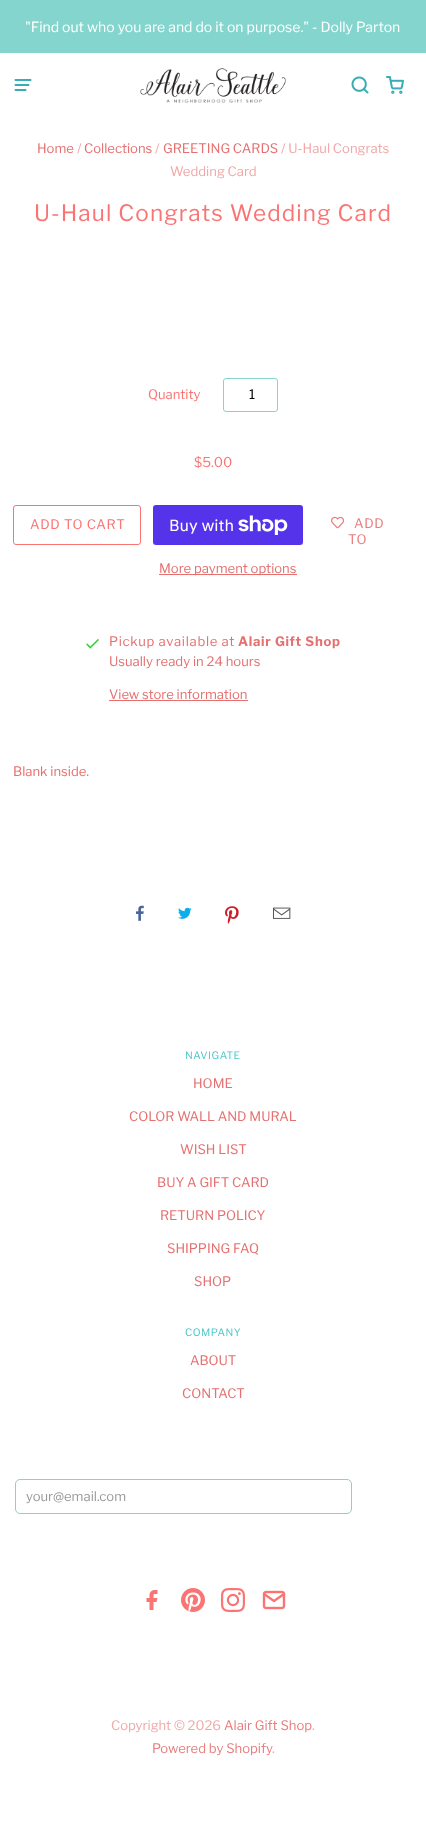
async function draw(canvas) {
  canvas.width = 426;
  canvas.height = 1848;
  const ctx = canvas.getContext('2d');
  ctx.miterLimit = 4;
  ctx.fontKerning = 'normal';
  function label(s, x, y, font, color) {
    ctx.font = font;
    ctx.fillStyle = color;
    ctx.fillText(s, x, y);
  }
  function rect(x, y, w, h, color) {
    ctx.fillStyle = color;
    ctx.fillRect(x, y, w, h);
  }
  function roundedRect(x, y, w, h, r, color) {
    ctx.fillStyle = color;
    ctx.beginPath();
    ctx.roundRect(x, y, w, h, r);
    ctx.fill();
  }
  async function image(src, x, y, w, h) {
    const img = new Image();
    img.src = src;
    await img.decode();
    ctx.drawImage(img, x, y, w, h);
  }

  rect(0, 0, 426, 1848, '#fff');
  rect(0, 0, 426, 53, '#84d5cd');
  label('"Find out who you are and do it on purpose." - Dolly Parton', 25, 32, '14px Libre Franklin', '#fff');
  await image('assets/img1.png', 14, 79, 18, 12);
  await image('assets/img2.png', 140, 68, 146, 35);
  await image('assets/img3.png', 351, 76, 18, 18);
  await image('assets/img4.png', 386, 76, 18, 18);
  label('Home', 37, 153, '13.1px Libre Franklin', '#e57070');
  label('/', 77, 153, '13.1px Libre Franklin', '#efa9a9');
  label('Collections', 84, 153, '13.1px Libre Franklin', '#e57070');
  label('/', 155, 153, '13.1px Libre Franklin', '#efa9a9');
  label('GREETING CARDS', 163, 153, '13.1px Libre Franklin', '#e57070');
  label('/ U-Haul Congrats', 281, 153, '13.1px Libre Franklin', '#efa9a9');
  label('Wedding Card', 170, 176, '13.1px Libre Franklin', '#efa9a9');
  ctx.letterSpacing = '1.1px';
  label('U-Haul Congrats Wedding Card', 34, 221, '22.5px Libre Franklin', '#fa7474');
  ctx.letterSpacing = '0px';
  label('Quantity', 148, 399, '13.1px Libre Franklin', '#fa7474');
  ctx.beginPath();
  ctx.roundRect(223.5, 378.5, 54, 33, 2.5);
  ctx.strokeStyle = '#84d5cd';
  ctx.stroke();
  label('1', 249, 399, '13.1px Libre Franklin', '#050505');
  label('$5.00', 194, 467, '13.5px Libre Franklin', '#fa7474');
  ctx.beginPath();
  ctx.roundRect(13.5, 505.5, 127, 39, 2.5);
  ctx.strokeStyle = '#fa7474';
  ctx.stroke();
  ctx.letterSpacing = '0.7px';
  label('ADD TO CART', 30, 529, '13.1px Libre Franklin', '#fa7474');
  roundedRect(153, 505, 150, 40, 3, '#5433eb');
  ctx.letterSpacing = '0px';
  label('Buy with', 169, 531, '16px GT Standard', '#fff');
  await image('assets/img5.png', 238, 515, 50, 20);
  rect(159, 574, 138, 1, '#e57070');
  label('More payment options', 159, 573, '13.1px Libre Franklin', '#e57070');
  await image('assets/img6.png', 331, 516, 14, 13);
  ctx.letterSpacing = '0.7px';
  label('ADD', 354, 528, '13.1px Libre Franklin', '#e87e7e');
  label('TO', 348, 544, '13.1px Libre Franklin', '#e87e7e');
  await image('assets/img7.png', 86, 639, 13, 10);
  label('Pickup available at', 109, 646, '13.1px Libre Franklin', '#e57070');
  label('Alair Gift Shop', 238, 646, 'bold 13.1px Libre Franklin', '#e57070');
  ctx.letterSpacing = '0px';
  label('Usually ready in 24 hours', 109, 666, '13.1px Libre Franklin', '#e57070');
  label('View store information', 109, 699, '13.1px Libre Franklin', '#e57070');
  rect(109, 700, 139, 1, '#e57070');
  label('Blank inside.', 13, 776, '13.1px Libre Franklin', '#e57070');
  await image('assets/img8.png', 136, 905, 8, 16);
  await image('assets/img9.png', 178, 907, 14, 12);
  await image('assets/img10.png', 225, 906, 14, 18);
  await image('assets/img11.png', 273, 907, 18, 12);
  ctx.letterSpacing = '0.5px';
  label('NAVIGATE', 185, 1059, '10.25px Libre Franklin', '#4fc8cd');
  ctx.letterSpacing = '0px';
  label('HOME', 193, 1088, '13.1px Libre Franklin', '#e57070');
  label('COLOR WALL AND MURAL', 129, 1121, '13.1px Libre Franklin', '#e57070');
  label('WISH LIST', 180, 1154, '13.1px Libre Franklin', '#e57070');
  label('BUY A GIFT CARD', 157, 1187, '13.1px Libre Franklin', '#e57070');
  label('RETURN POLICY', 160, 1220, '13.1px Libre Franklin', '#e57070');
  label('SHIPPING FAQ', 167, 1253, '13.1px Libre Franklin', '#e57070');
  label('SHOP', 194, 1286, '13.1px Libre Franklin', '#e57070');
  ctx.letterSpacing = '0.5px';
  label('COMPANY', 185, 1336, '10.25px Libre Franklin', '#4fc8cd');
  ctx.letterSpacing = '0px';
  label('ABOUT', 190, 1365, '13.1px Libre Franklin', '#e57070');
  label('CONTACT', 182, 1398, '13.1px Libre Franklin', '#e57070');
  ctx.beginPath();
  ctx.roundRect(15.5, 1479.5, 336, 34, 4.5);
  ctx.strokeStyle = '#84d5cd';
  ctx.stroke();
  label('your@email.com', 26, 1501, '13.1px Libre Franklin', '#9a9a9a');
  await image('assets/img12.png', 146, 1590, 12, 20);
  await image('assets/img13.png', 181, 1588, 24, 24);
  await image('assets/img14.png', 221, 1588, 24, 24);
  await image('assets/img15.png', 262, 1590, 24, 20);
  label('Copyright © 2026', 111, 1730, '13.1px Libre Franklin', '#efa9a9');
  label('Alair Gift Shop', 224, 1730, '13.1px Libre Franklin', '#e87e7e');
  label('.', 312, 1730, '13.1px Libre Franklin', '#efa9a9');
  label('Powered by Shopify', 152, 1753, '13.1px Libre Franklin', '#e87e7e');
  label('.', 272, 1753, '13.1px Libre Franklin', '#efa9a9');
}

draw(document.querySelector('canvas'));
